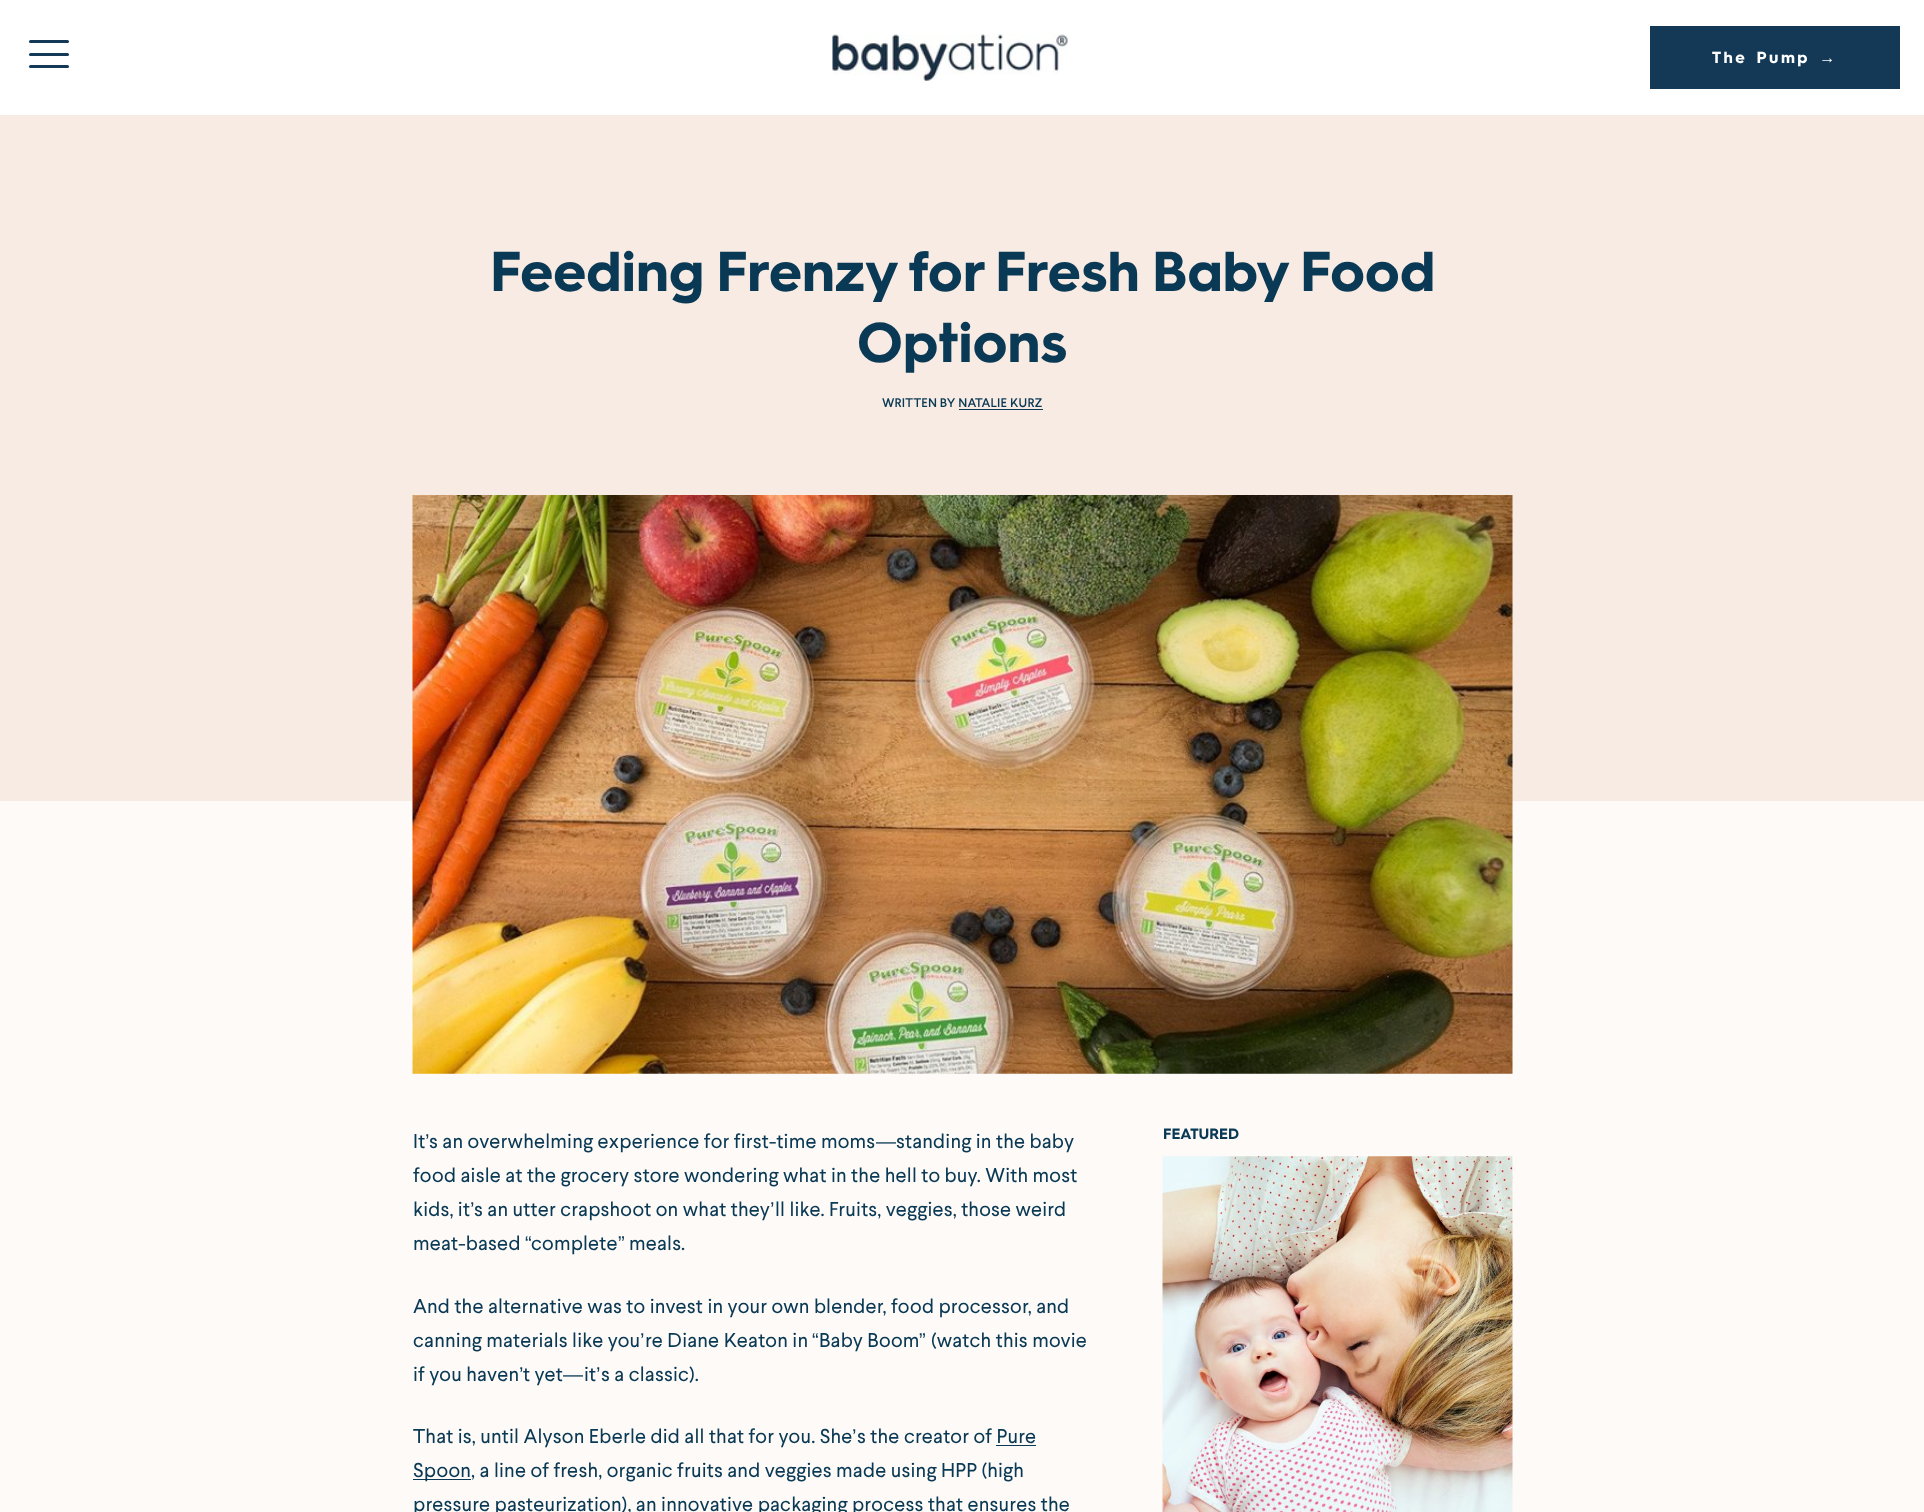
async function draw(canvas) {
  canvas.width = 1924;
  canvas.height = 1512;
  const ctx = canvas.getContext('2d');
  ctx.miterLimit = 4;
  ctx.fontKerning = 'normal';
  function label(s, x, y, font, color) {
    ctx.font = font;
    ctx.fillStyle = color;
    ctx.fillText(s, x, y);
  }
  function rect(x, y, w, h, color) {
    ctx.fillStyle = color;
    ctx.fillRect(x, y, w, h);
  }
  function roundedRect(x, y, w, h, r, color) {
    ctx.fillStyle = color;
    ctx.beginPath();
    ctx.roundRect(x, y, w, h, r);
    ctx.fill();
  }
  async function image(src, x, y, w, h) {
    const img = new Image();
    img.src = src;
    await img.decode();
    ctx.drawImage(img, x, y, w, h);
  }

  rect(0, 0, 1924, 1512, '#fefaf7');
  rect(0, 0, 1924, 115, '#fff');
  roundedRect(29, 40, 40, 3, 1.5, '#133956');
  roundedRect(29, 53, 40, 3, 1.5, '#133956');
  roundedRect(29, 65, 40, 3, 1.5, '#133956');
  await image('assets/img1.png', 832, 34, 236, 47);
  rect(1650, 26, 250, 63, '#133956');
  ctx.letterSpacing = '2.5px';
  label('The Pump', 1712, 63, 'bold 16.25px "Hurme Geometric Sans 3"', '#fff');
  label('→', 1819, 63, 'bold 16.25px Liberation Sans', '#fff');
  rect(0, 115, 1924, 686, '#f8ebe3');
  ctx.letterSpacing = '0.2px';
  ctx.wordSpacing = '-11px';
  label('Feeding Frenzy for Fresh Baby Food', 490, 291, 'bold 56.25px "Hurme Geometric Sans 3"', '#093954');
  ctx.wordSpacing = '0px';
  label('Options', 857, 362, 'bold 56.25px "Hurme Geometric Sans 3"', '#093954');
  label('WRITTEN BY NATALIE KURZ', 882, 407, '500 12.5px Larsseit', '#093954');
  rect(959, 409, 84, 1, '#093954');
  await image('assets/img2.png', 412, 495, 1101, 579);
  label('It', 413, 1148, '20px Larsseit', '#093954');
  label('’', 425, 1148, '20px Liberation Sans', '#093954');
  label('s an overwhelming experience for first-time moms', 429, 1148, '20px Larsseit', '#093954');
  label('standing in the baby', 896, 1148, '20px Larsseit', '#093954');
  label('—', 876, 1148, '20px Liberation Sans', '#093954');
  label('food aisle at the grocery store wondering what in the hell to buy. With most', 413, 1182, '20px Larsseit', '#093954');
  label('kids, it', 413, 1216, '20px Larsseit', '#093954');
  label('’', 470, 1216, '20px Liberation Sans', '#093954');
  label('s an utter crapshoot on what they', 474, 1216, '20px Larsseit', '#093954');
  label('’', 770, 1216, '20px Liberation Sans', '#093954');
  label('ll like. Fruits, veggies, those weird', 775, 1216, '20px Larsseit', '#093954');
  label('meat-based', 413, 1250, '20px Larsseit', '#093954');
  label('“', 525, 1250, '20px Liberation Sans', '#093954');
  label('complete', 531, 1250, '20px Larsseit', '#093954');
  label('”', 618, 1250, '20px Liberation Sans', '#093954');
  label('meals.', 629, 1250, '20px Larsseit', '#093954');
  label('And the alternative was to invest in your own blender, food processor, and', 413, 1313, '20px Larsseit', '#093954');
  label('canning materials like you', 413, 1347, '20px Larsseit', '#093954');
  label('’', 640, 1347, '20px Liberation Sans', '#093954');
  label('re Diane Keaton in', 645, 1347, '20px Larsseit', '#093954');
  label('“', 812, 1347, '20px Liberation Sans', '#093954');
  label('Baby Boom', 819, 1347, '20px Larsseit', '#093954');
  label('”', 919, 1347, '20px Liberation Sans', '#093954');
  label('(watch this movie', 931, 1347, '20px Larsseit', '#093954');
  label('if you haven', 413, 1381, '20px Larsseit', '#093954');
  label('’', 519, 1381, '20px Liberation Sans', '#093954');
  label('t yet', 523, 1381, '20px Larsseit', '#093954');
  label('—', 563, 1381, '20px Liberation Sans', '#093954');
  label('it', 584, 1381, '20px Larsseit', '#093954');
  label('’', 596, 1381, '20px Liberation Sans', '#093954');
  label('s a classic).', 601, 1381, '20px Larsseit', '#093954');
  label('That is, until Alyson Eberle did all that for you. She', 413, 1443, '20px Larsseit', '#093954');
  label('’', 852, 1443, '20px Liberation Sans', '#093954');
  label('s the creator of Pure', 857, 1443, '20px Larsseit', '#093954');
  rect(413, 1479, 58, 1, '#093954');
  label('Spoon, a line of fresh, organic fruits and veggies made using HPP (high', 413, 1477, '20px Larsseit', '#093954');
  rect(996, 1445, 40, 1, '#093954');
  label('pressure pasteurization), an innovative packaging process that ensures the', 413, 1511, '20px Larsseit', '#093954');
  ctx.letterSpacing = '0px';
  label('FEATURED', 1163, 1139, 'bold 15px "Hurme Geometric Sans 3"', '#093954');
  await image('assets/img3.png', 1162, 1156, 351, 356);
}

draw(document.querySelector('canvas'));
